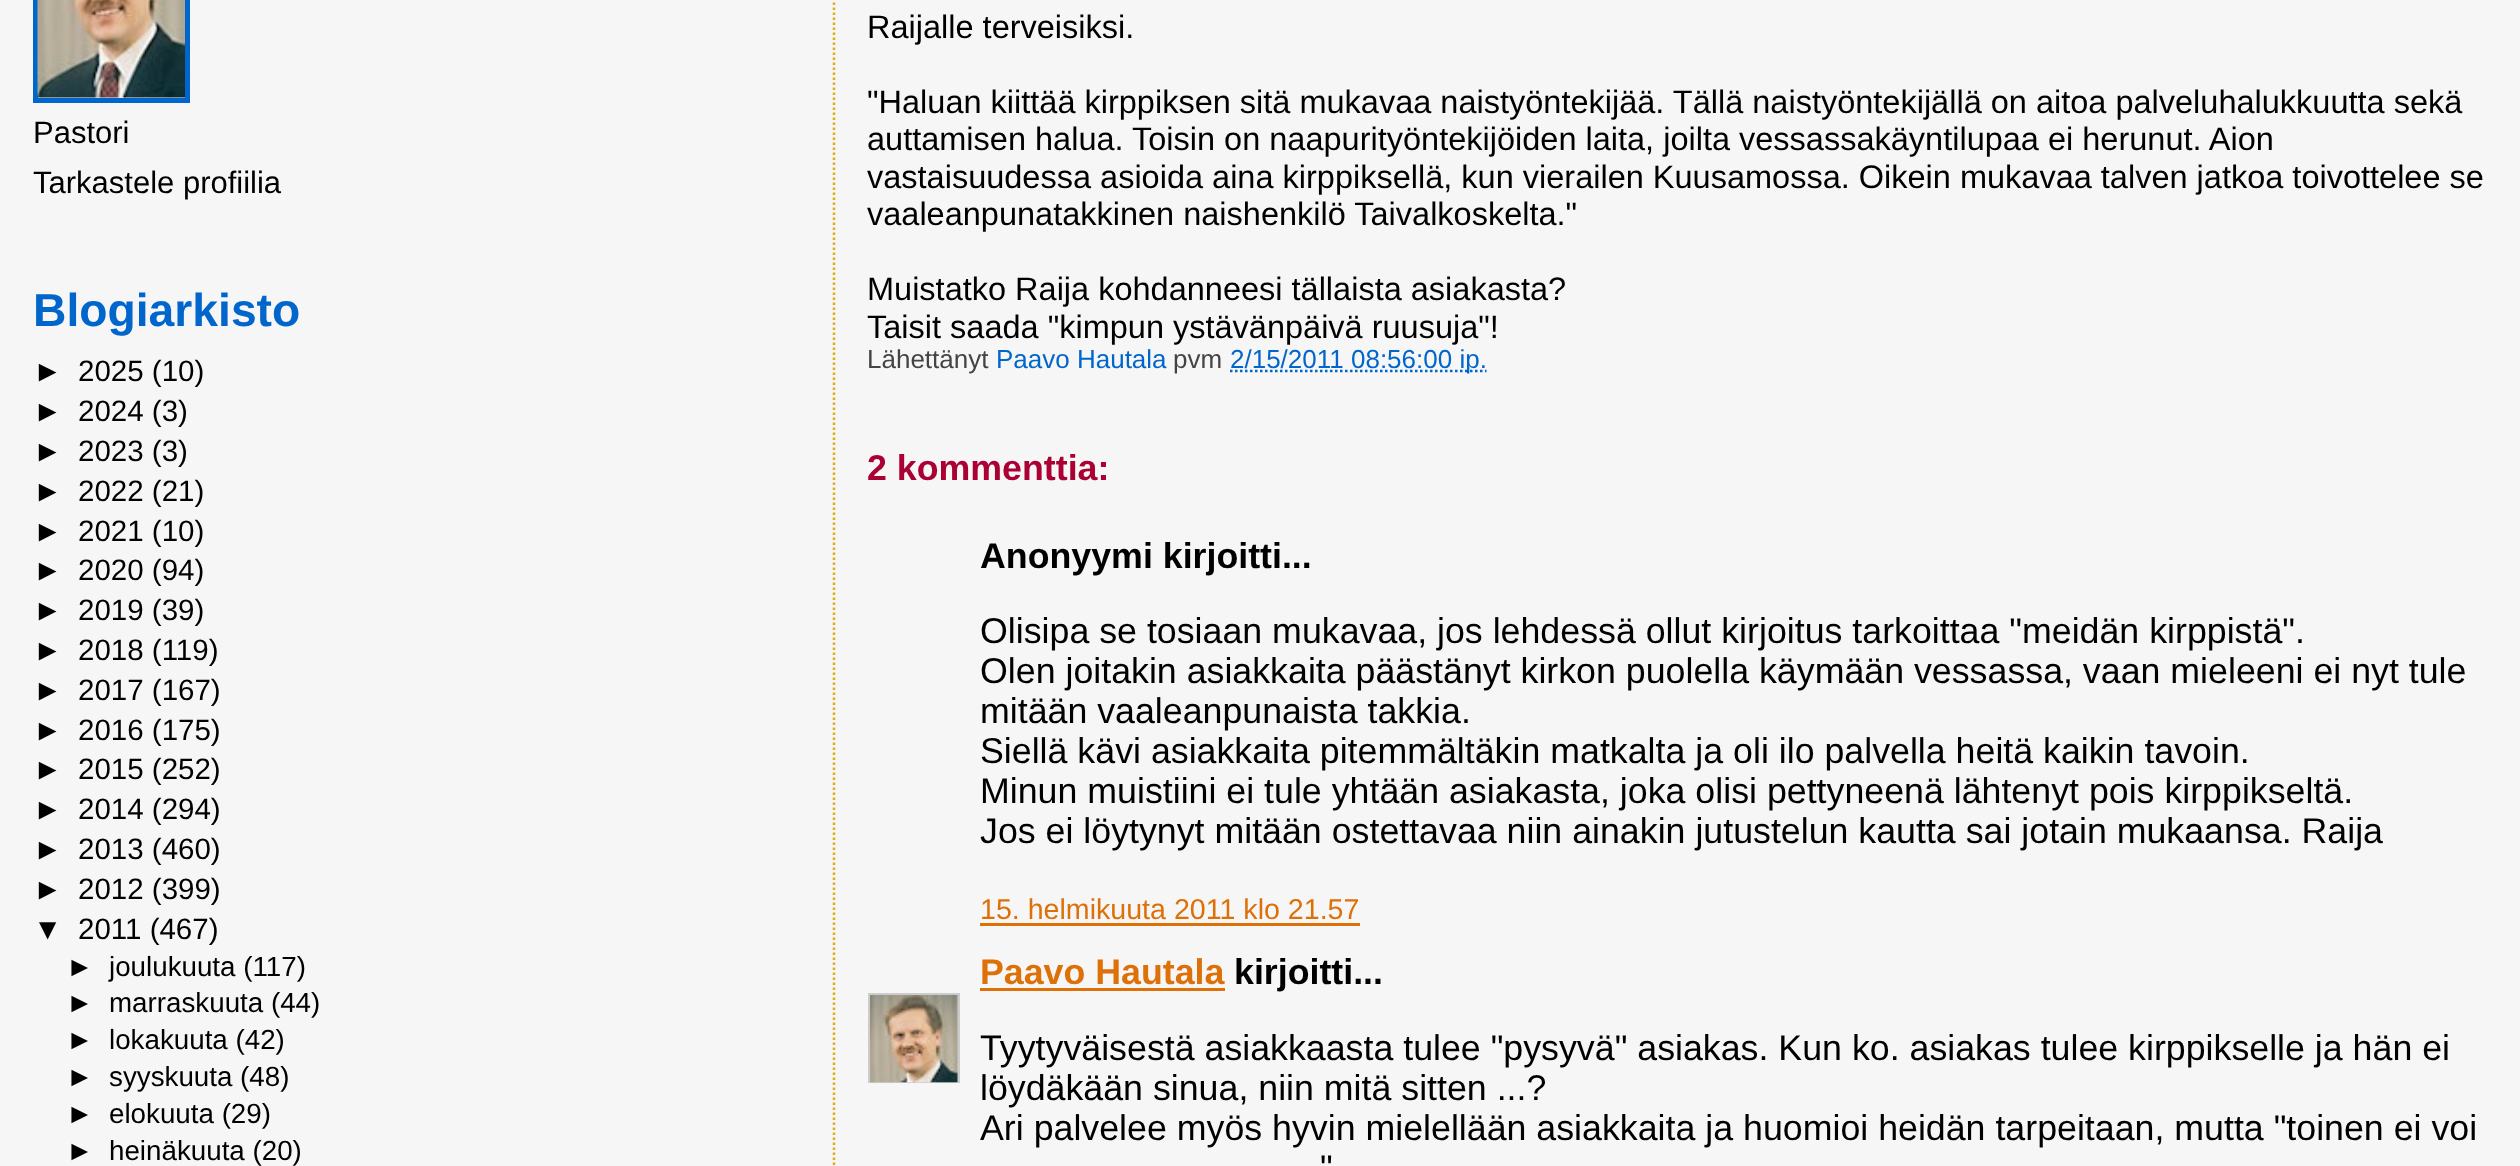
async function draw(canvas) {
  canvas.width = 2520;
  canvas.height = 1166;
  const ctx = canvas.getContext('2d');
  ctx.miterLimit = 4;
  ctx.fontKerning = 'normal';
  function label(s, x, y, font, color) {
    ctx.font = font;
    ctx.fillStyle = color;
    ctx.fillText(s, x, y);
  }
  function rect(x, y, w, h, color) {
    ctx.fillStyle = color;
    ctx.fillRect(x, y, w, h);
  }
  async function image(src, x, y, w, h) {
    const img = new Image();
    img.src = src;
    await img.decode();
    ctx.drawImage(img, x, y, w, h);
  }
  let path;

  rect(0, 0, 2520, 1166, '#f6f6f6');
  ctx.strokeStyle = '#06c';
  ctx.lineWidth = 5;
  ctx.strokeRect(35.5, -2.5, 152, 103);
  await image('assets/img1.png', 37, 0, 148, 98);
  label('Pastori', 33, 143, '31px Liberation Sans', '#000');
  label('Tarkastele profiilia', 33, 193, '31px Liberation Sans', '#000');
  label('Blogiarkisto', 33, 326, 'bold 46.25px Liberation Sans', '#06c');
  label('►', 33, 381, '29.5px Liberation Sans', '#000');
  label('2025 (10)', 78, 381, '29.5px Liberation Sans', '#000');
  label('►', 33, 421, '29.5px Liberation Sans', '#000');
  label('2024 (3)', 78, 421, '29.5px Liberation Sans', '#000');
  label('►', 33, 461, '29.5px Liberation Sans', '#000');
  label('2023 (3)', 78, 461, '29.5px Liberation Sans', '#000');
  label('►', 33, 501, '29.5px Liberation Sans', '#000');
  label('2022 (21)', 78, 501, '29.5px Liberation Sans', '#000');
  label('►', 33, 541, '29.5px Liberation Sans', '#000');
  label('2021 (10)', 78, 541, '29.5px Liberation Sans', '#000');
  label('►', 33, 580, '29.5px Liberation Sans', '#000');
  label('2020 (94)', 78, 580, '29.5px Liberation Sans', '#000');
  label('►', 33, 620, '29.5px Liberation Sans', '#000');
  label('2019 (39)', 78, 620, '29.5px Liberation Sans', '#000');
  label('►', 33, 660, '29.5px Liberation Sans', '#000');
  label('2018 (119)', 78, 660, '29.5px Liberation Sans', '#000');
  label('►', 33, 700, '29.5px Liberation Sans', '#000');
  label('2017 (167)', 78, 700, '29.5px Liberation Sans', '#000');
  label('►', 33, 740, '29.5px Liberation Sans', '#000');
  label('2016 (175)', 78, 740, '29.5px Liberation Sans', '#000');
  label('►', 33, 779, '29.5px Liberation Sans', '#000');
  label('2015 (252)', 78, 779, '29.5px Liberation Sans', '#000');
  label('►', 33, 819, '29.5px Liberation Sans', '#000');
  label('2014 (294)', 78, 819, '29.5px Liberation Sans', '#000');
  label('►', 33, 859, '29.5px Liberation Sans', '#000');
  label('2013 (460)', 78, 859, '29.5px Liberation Sans', '#000');
  label('►', 33, 899, '29.5px Liberation Sans', '#000');
  label('2012 (399)', 78, 899, '29.5px Liberation Sans', '#000');
  label('▼', 33, 939, '29.5px Liberation Sans', '#000');
  label('2011 (467)', 78, 939, '29.5px Liberation Sans', '#000');
  label('►', 66, 976, '27.75px Liberation Sans', '#000');
  label('joulukuuta (117)', 109, 976, '27.75px Liberation Sans', '#000');
  label('►', 66, 1012, '27.75px Liberation Sans', '#000');
  label('marraskuuta (44)', 109, 1012, '27.75px Liberation Sans', '#000');
  label('►', 66, 1049, '27.75px Liberation Sans', '#000');
  label('lokakuuta (42)', 109, 1049, '27.75px Liberation Sans', '#000');
  label('►', 66, 1086, '27.75px Liberation Sans', '#000');
  label('syyskuuta (48)', 109, 1086, '27.75px Liberation Sans', '#000');
  label('►', 66, 1123, '27.75px Liberation Sans', '#000');
  label('elokuuta (29)', 109, 1123, '27.75px Liberation Sans', '#000');
  label('►', 66, 1160, '27.75px Liberation Sans', '#000');
  label('heinäkuuta (20)', 109, 1160, '27.75px Liberation Sans', '#000');
  path = new Path2D('M834-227.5V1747.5');
  ctx.strokeStyle = '#e0ad12';
  ctx.lineWidth = 2.5;
  ctx.setLineDash([2.5, 2.5]);
  ctx.stroke(path);
  label('Raijalle terveisiksi.', 867, 38, '32.5px Liberation Sans', '#000');
  label('"Haluan kiittää kirppiksen sitä mukavaa naistyöntekijää. Tällä naistyöntekijällä on aitoa palveluhalukkuutta sekä', 867, 113, '32.5px Liberation Sans', '#000');
  label('auttamisen halua. Toisin on naapurityöntekijöiden laita, joilta vessassakäyntilupaa ei herunut. Aion', 867, 150, '32.5px Liberation Sans', '#000');
  label('vastaisuudessa asioida aina kirppiksellä, kun vierailen Kuusamossa. Oikein mukavaa talven jatkoa toivottelee se', 867, 188, '32.5px Liberation Sans', '#000');
  label('vaaleanpunatakkinen naishenkilö Taivalkoskelta."', 867, 225, '32.5px Liberation Sans', '#000');
  label('Muistatko Raija kohdanneesi tällaista asiakasta?', 867, 300, '32.5px Liberation Sans', '#000');
  label('Taisit saada "kimpun ystävänpäivä ruusuja"!', 867, 338, '32.5px Liberation Sans', '#000');
  label('Lähettänyt', 867, 368, '26px Liberation Sans', '#444');
  label('Paavo Hautala', 996, 368, '26px Liberation Sans', '#06c');
  label('pvm', 1173, 368, '26px Liberation Sans', '#444');
  path = new Path2D('M1230 371H1486.5');
  ctx.strokeStyle = '#06c';
  ctx.stroke(path);
  label('2/15/2011 08:56:00 ip.', 1230, 368, '26px Liberation Sans', '#06c');
  label('2 kommenttia:', 867, 480, 'bold 35.75px Liberation Sans', '#a03');
  label('Anonyymi kirjoitti...', 980, 568, 'bold 35.75px Liberation Sans', '#000');
  label('Olisipa se tosiaan mukavaa, jos lehdessä ollut kirjoitus tarkoittaa "meidän kirppistä".', 980, 643, '35.75px Liberation Sans', '#000');
  label('Olen joitakin asiakkaita päästänyt kirkon puolella käymään vessassa, vaan mieleeni ei nyt tule', 980, 683, '35.75px Liberation Sans', '#000');
  label('mitään vaaleanpunaista takkia.', 980, 723, '35.75px Liberation Sans', '#000');
  label('Siellä kävi asiakkaita pitemmältäkin matkalta ja oli ilo palvella heitä kaikin tavoin.', 980, 763, '35.75px Liberation Sans', '#000');
  label('Minun muistiini ei tule yhtään asiakasta, joka olisi pettyneenä lähtenyt pois kirppikseltä.', 980, 803, '35.75px Liberation Sans', '#000');
  label('Jos ei löytynyt mitään ostettavaa niin ainakin jutustelun kautta sai jotain mukaansa. Raija', 980, 843, '35.75px Liberation Sans', '#000');
  label('15. helmikuuta 2011 klo 21.57', 980, 919, '28.6px Liberation Sans', '#de7008');
  rect(980, 923, 380, 3, '#de7008');
  label('Paavo Hautala', 980, 984, 'bold 35.75px Liberation Sans', '#de7008');
  rect(980, 988, 245, 3, '#de7008');
  label('kirjoitti...', 1234, 984, 'bold 35.75px Liberation Sans', '#000');
  ctx.save();
  ctx.beginPath();
  ctx.rect(868, 993, 92, 90);
  ctx.clip();
  ctx.strokeStyle = '#ccc';
  ctx.lineWidth = 3;
  ctx.setLineDash([]);
  ctx.strokeRect(869.5, 994.5, 89, 89);
  ctx.restore();
  await image('assets/img2.png', 870, 995, 88, 88);
  label('Tyytyväisestä asiakkaasta tulee "pysyvä" asiakas. Kun ko. asiakas tulee kirppikselle ja hän ei', 980, 1060, '35.75px Liberation Sans', '#000');
  label('löydäkään sinua, niin mitä sitten ...?', 980, 1100, '35.75px Liberation Sans', '#000');
  label('Ari palvelee myös hyvin mielellään asiakkaita ja huomioi heidän tarpeitaan, mutta "toinen ei voi', 980, 1140, '35.75px Liberation Sans', '#000');
  label('"', 1320, 1180, '35.75px Liberation Sans', '#000');
}

draw(document.querySelector('canvas'));
